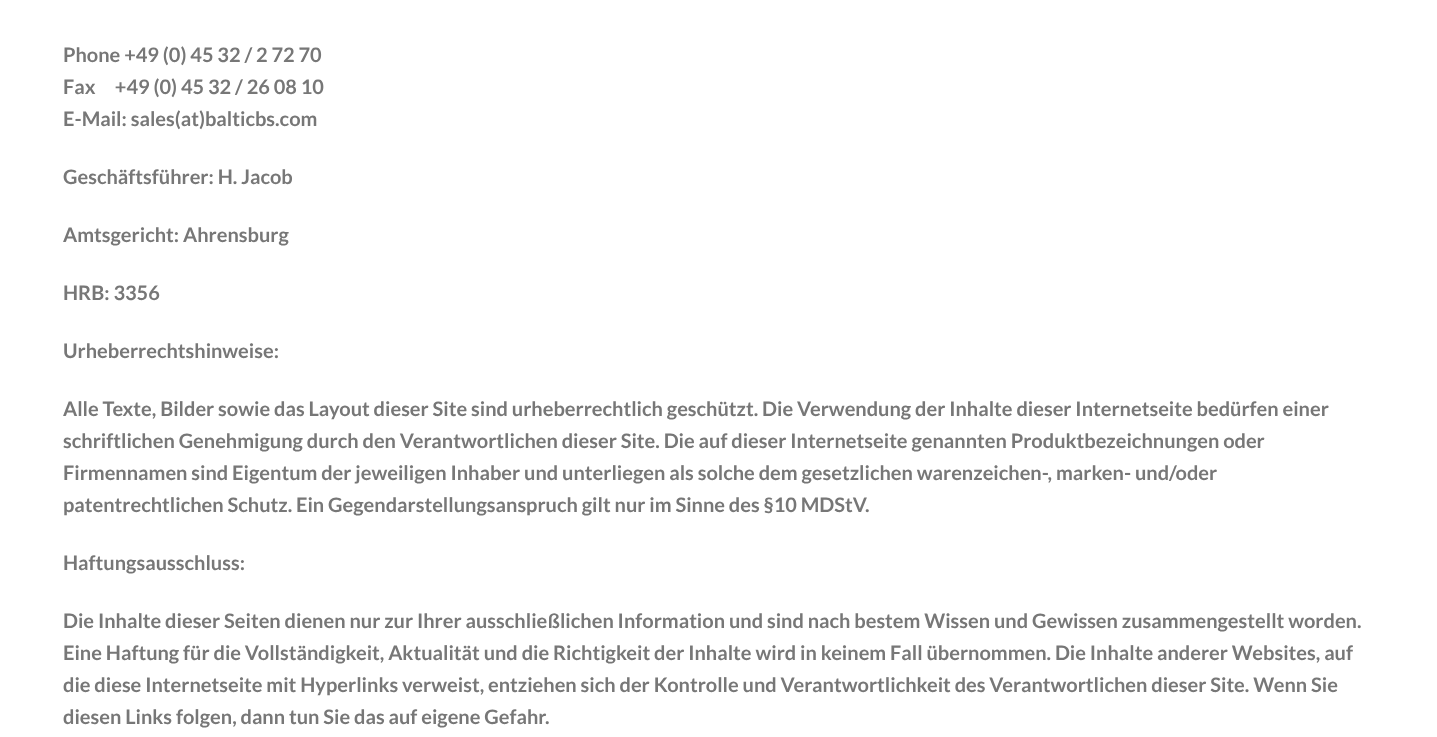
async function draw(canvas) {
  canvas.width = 1437;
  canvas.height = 737;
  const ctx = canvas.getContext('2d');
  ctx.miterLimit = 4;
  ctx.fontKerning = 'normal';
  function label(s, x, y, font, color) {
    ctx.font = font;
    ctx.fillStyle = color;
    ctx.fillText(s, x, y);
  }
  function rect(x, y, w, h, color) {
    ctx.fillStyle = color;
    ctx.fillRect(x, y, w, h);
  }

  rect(0, 0, 1437, 737, '#fff');
  label('Phone +49 (0) 45 32 / 2 72 70', 63, 62, 'bold 20px Lato', '#777');
  label('Fax     +49 (0) 45 32 / 26 08 10', 63, 94, 'bold 20px Lato', '#777');
  label('E-Mail: sales(at)balticbs.com', 63, 126, 'bold 20px Lato', '#777');
  label('Geschäftsführer: H. Jacob', 63, 184, 'bold 20px Lato', '#777');
  label('Amtsgericht: Ahrensburg', 63, 242, 'bold 20px Lato', '#777');
  label('HRB: 3356', 63, 300, 'bold 20px Lato', '#777');
  label('Urheberrechtshinweise:', 63, 358, 'bold 20px Lato', '#777');
  label('Alle Texte, Bilder sowie das Layout dieser Site sind urheberrechtlich geschützt. Die Verwendung der Inhalte dieser Internetseite bedürfen einer', 63, 416, 'bold 20px Lato', '#777');
  label('schriftlichen Genehmigung durch den Verantwortlichen dieser Site. Die auf dieser Internetseite genannten Produktbezeichnungen oder', 63, 448, 'bold 20px Lato', '#777');
  label('Firmennamen sind Eigentum der jeweiligen Inhaber und unterliegen als solche dem gesetzlichen warenzeichen-, marken- und/oder', 63, 480, 'bold 20px Lato', '#777');
  label('patentrechtlichen Schutz. Ein Gegendarstellungsanspruch gilt nur im Sinne des §10 MDStV.', 63, 512, 'bold 20px Lato', '#777');
  label('Haftungsausschluss:', 63, 570, 'bold 20px Lato', '#777');
  label('Die Inhalte dieser Seiten dienen nur zur Ihrer ausschließlichen Information und sind nach bestem Wissen und Gewissen zusammengestellt worden.', 63, 628, 'bold 20px Lato', '#777');
  label('Eine Haftung für die Vollständigkeit, Aktualität und die Richtigkeit der Inhalte wird in keinem Fall übernommen. Die Inhalte anderer Websites, auf', 63, 660, 'bold 20px Lato', '#777');
  label('die diese Internetseite mit Hyperlinks verweist, entziehen sich der Kontrolle und Verantwortlichkeit des Verantwortlichen dieser Site. Wenn Sie', 63, 692, 'bold 20px Lato', '#777');
  label('diesen Links folgen, dann tun Sie das auf eigene Gefahr.', 63, 724, 'bold 20px Lato', '#777');
}

draw(document.querySelector('canvas'));
